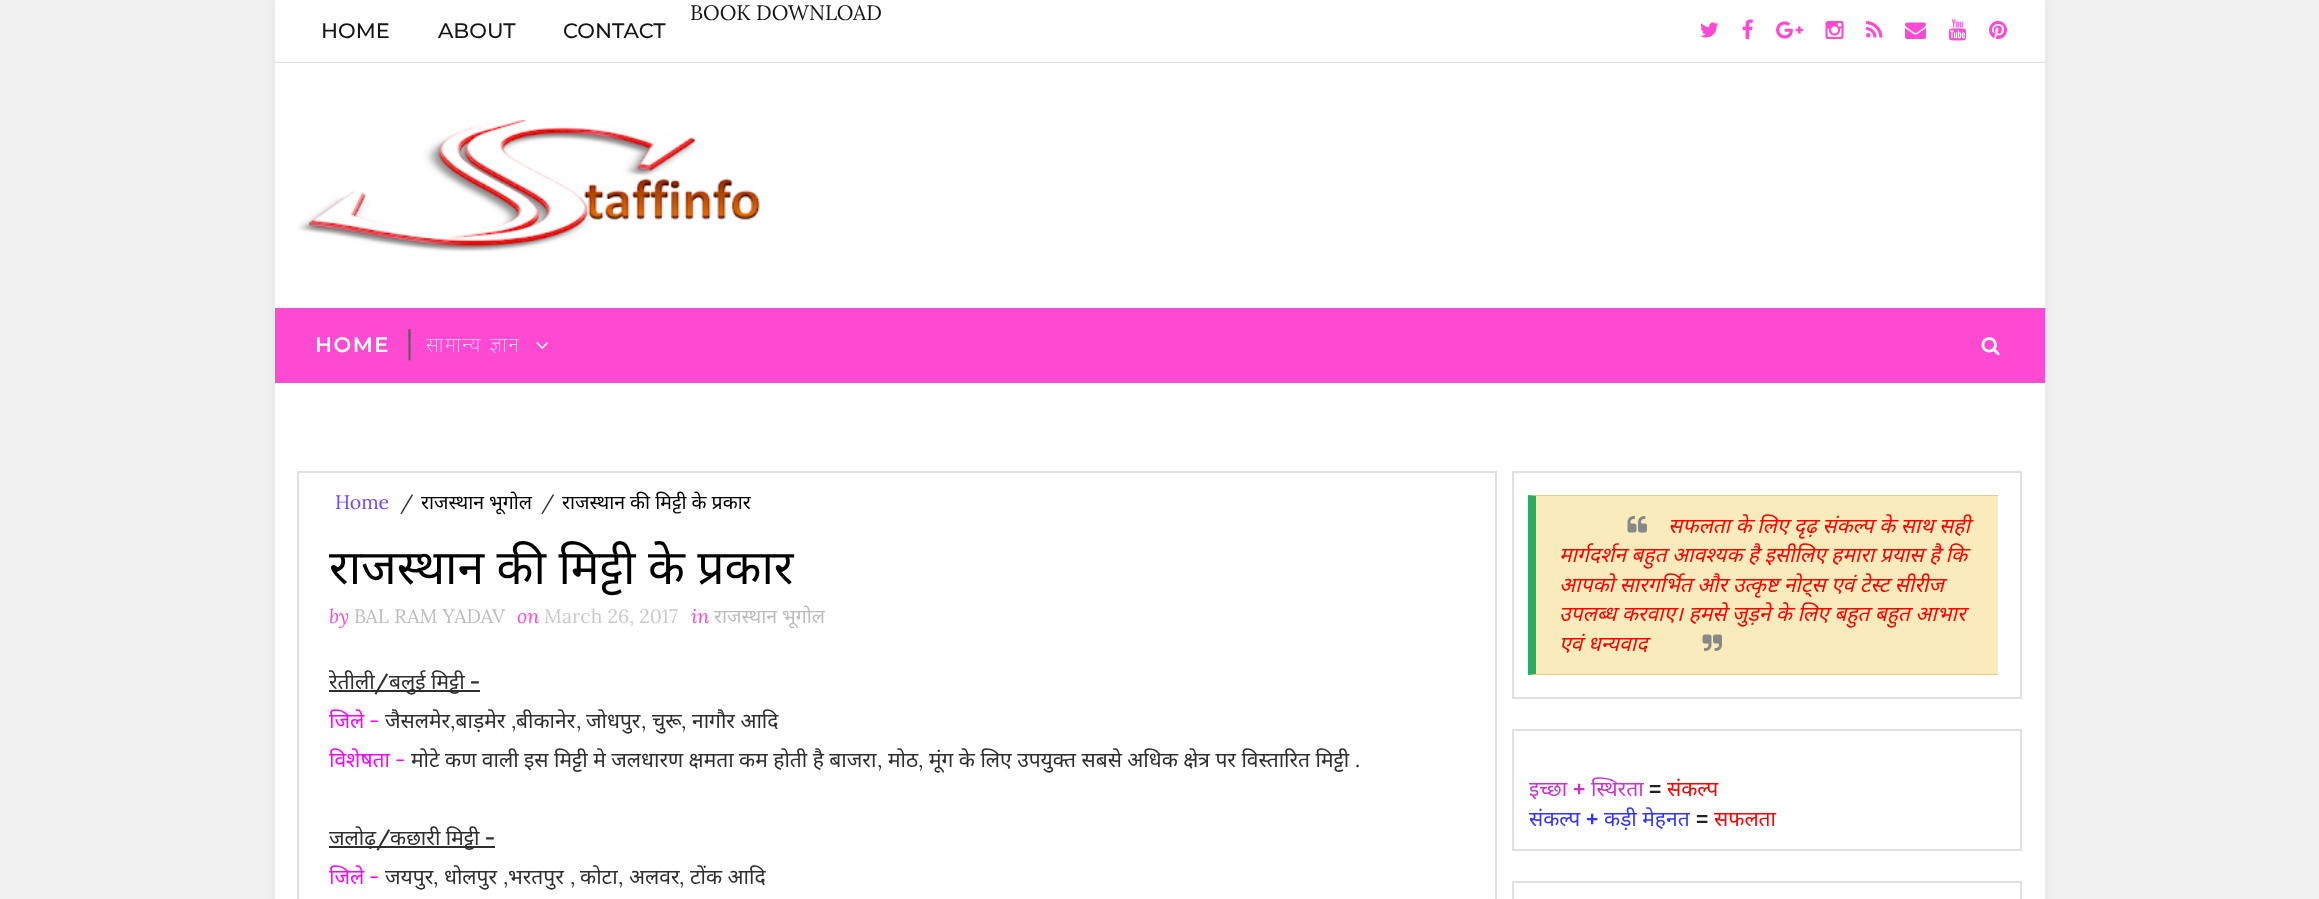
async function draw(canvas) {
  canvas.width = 2319;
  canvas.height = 899;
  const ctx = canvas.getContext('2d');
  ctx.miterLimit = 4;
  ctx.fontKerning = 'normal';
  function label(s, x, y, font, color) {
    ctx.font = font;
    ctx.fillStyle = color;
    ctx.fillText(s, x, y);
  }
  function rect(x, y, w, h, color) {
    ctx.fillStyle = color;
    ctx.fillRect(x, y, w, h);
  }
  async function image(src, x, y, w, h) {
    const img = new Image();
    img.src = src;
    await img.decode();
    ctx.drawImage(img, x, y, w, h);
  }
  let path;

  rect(0, 0, 2319, 899, '#f0f0f0');
  ctx.fillStyle = '#0000000d';
  ctx.filter = 'blur(4px)';
  ctx.beginPath();
  ctx.rect(275, 0, 1770, 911);
  ctx.fill();
  ctx.filter = 'none';
  rect(275, 0, 1770, 899, '#fff');
  rect(275, 62, 1770, 1, '#e0e0e0');
  label('BOOK DOWNLOAD', 690, 20, '21px Lora', '#151515');
  label('HOME', 321, 38, '500 21px Montserrat', '#151515');
  label('ABOUT', 438, 38, '500 21px Montserrat', '#151515');
  label('CONTACT', 563, 38, '500 21px Montserrat', '#151515');
  await image('assets/img1.png', 1700, 22, 19, 16);
  await image('assets/img2.png', 1742, 19, 11, 20);
  await image('assets/img3.png', 1776, 21, 27, 18);
  await image('assets/img4.png', 1825, 21, 19, 18);
  await image('assets/img5.png', 1866, 21, 17, 17);
  await image('assets/img6.png', 1905, 22, 21, 17);
  await image('assets/img7.png', 1948, 19, 19, 22);
  await image('assets/img8.png', 1989, 21, 18, 18);
  await image('assets/img9.png', 297, 119, 463, 133);
  rect(275, 308, 1770, 75, '#fe49d2');
  ctx.letterSpacing = '1.5px';
  label('HOME', 315, 352, '600 21px Montserrat', '#fff');
  ctx.letterSpacing = '0px';
  label('|', 406, 352, '30px Lora', '#5c5c5c');
  ctx.letterSpacing = '1.5px';
  ctx.wordSpacing = '1px';
  label('सामान्य ज्ञान', 426, 352, '100 21px Noto Sans', '#fff');
  await image('assets/img10.png', 536, 342, 12, 7);
  await image('assets/img11.png', 1981, 337, 19, 19);
  ctx.strokeStyle = '#e0e0e0';
  ctx.lineWidth = 2;
  ctx.strokeRect(298, 472, 1198, 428);
  ctx.letterSpacing = '0px';
  ctx.wordSpacing = '0px';
  label('Home', 335, 509, '19.5px Lora', '#7449fe');
  label('/', 400, 509, '19.5px Lora', '#2e2e2e');
  label('राजस्थान भूगोल', 421, 509, '19.5px Noto Sans', '#010101');
  label('/', 541, 509, '19.5px Lora', '#2e2e2e');
  label('राजस्थान की मिट्टी के प्रकार', 562, 509, '19.5px Noto Sans', '#010101');
  label('राजस्थान की मिट्टी के प्रकार', 329, 584, '48px Noto Sans', '#010101');
  label('by', 329, 623, 'italic 19.5px Lora', '#fe49d2');
  label('BAL RAM YADAV', 354, 623, '19.5px Lora', '#bdbdbd');
  label('on', 517, 623, 'italic 19.5px Lora', '#fe49d2');
  label('March 26, 2017', 544, 623, '19.5px Lora', '#cbcbcb');
  label('in', 691, 623, 'italic 19.5px Lora', '#fe49d2');
  label('राजस्थान भूगोल', 714, 623, '19.5px Noto Sans', '#bdbdbd');
  label('रेतीली', 329, 689, '21px Noto Sans', '#2e2e2e');
  rect(329, 690, 151, 2, '#2e2e2e');
  label('/', 374, 689, 'bold 21px Lora', '#2e2e2e');
  label('बलुई मिट्टी', 389, 689, '21px Noto Sans', '#2e2e2e');
  label('-', 470, 689, 'bold 21px Lora', '#2e2e2e');
  label('जिले', 329, 728, '21px Noto Sans', '#f0f');
  label('-', 369, 728, '21px Lora', '#f0f');
  label('जैसलमेर बाड़मेर', 385, 728, '21px Noto Sans', '#2e2e2e');
  label(',', 511, 728, '21px Lora', '#2e2e2e');
  label('बीकानेर', 516, 728, '21px Noto Sans', '#2e2e2e');
  label('जोधपुर', 586, 728, '21px Noto Sans', '#2e2e2e');
  label(',', 641, 728, '21px Lora', '#2e2e2e');
  label('चुरू', 652, 728, '21px Noto Sans', '#2e2e2e');
  label('नागौर आदि', 692, 728, '21px Noto Sans', '#2e2e2e');
  label(',', 450, 728, '21px Lora', '#2e2e2e');
  label(',', 576, 728, '21px Lora', '#2e2e2e');
  label(',', 681, 728, '21px Lora', '#2e2e2e');
  label('विशेषता', 329, 767, '21px Noto Sans', '#f0f');
  label('-', 395, 767, '21px Lora', '#f0f');
  label('मोटे कण वाली इस मिट्टी मे जलधारण क्षमता कम होती है बाजरा', 411, 767, '21px Noto Sans', '#2e2e2e');
  label('मोठ', 888, 767, '21px Noto Sans', '#2e2e2e');
  label(',', 918, 767, '21px Lora', '#2e2e2e');
  label('मूंग के लिए उपयुक्त सबसे अधिक क्षेत्र पर विस्तारित मिट्टी', 929, 767, '21px Noto Sans', '#2e2e2e');
  label(',', 877, 767, '21px Lora', '#2e2e2e');
  label('.', 1355, 767, '21px Lora', '#2e2e2e');
  rect(329, 846, 166, 2, '#2e2e2e');
  label('जलोढ़', 329, 845, '21px Noto Sans', '#2e2e2e');
  label('/', 376, 845, 'bold 21px Lora', '#2e2e2e');
  label('कछारी मिट्टी', 390, 845, '21px Noto Sans', '#2e2e2e');
  label('-', 485, 845, 'bold 21px Lora', '#2e2e2e');
  label('जिले', 329, 884, '21px Noto Sans', '#f0f');
  label('-', 369, 884, '21px Lora', '#f0f');
  label('जयपुर', 385, 884, '21px Noto Sans', '#2e2e2e');
  label('धोलपुर', 444, 884, '21px Noto Sans', '#2e2e2e');
  label('भरतपुर', 508, 884, '21px Noto Sans', '#2e2e2e');
  label('कोटा', 580, 884, '21px Noto Sans', '#2e2e2e');
  label('अलवर', 629, 884, '21px Noto Sans', '#2e2e2e');
  label(',', 679, 884, '21px Lora', '#2e2e2e');
  label('टोंक आदि', 690, 884, '21px Noto Sans', '#2e2e2e');
  label(',', 433, 884, '21px Lora', '#2e2e2e');
  label(',', 503, 884, '21px Lora', '#2e2e2e');
  label(',', 570, 884, '21px Lora', '#2e2e2e');
  label(',', 618, 884, '21px Lora', '#2e2e2e');
  ctx.strokeRect(1513, 472, 508, 226);
  rect(1529, 495, 469, 180, '#faebbc');
  ctx.fillStyle = '#e1cc89';
  path = new Path2D('M1528 495H1998V496H1536Z');
  ctx.fill(path);
  path = new Path2D('M1998 675H1528L1536 674H1998Z');
  ctx.fill(path);
  ctx.fillStyle = '#27ae60';
  path = new Path2D('M1528 675V495L1536 496V674Z');
  ctx.fill(path);
  await image('assets/img12.png', 1627, 516, 20, 17);
  label('सफलता के लिए दृढ़ संकल्प के साथ सही', 1668, 533, 'italic 21px Noto Sans', '#f00');
  label('मार्गदर्शन बहुत आवश्यक है इसीलिए हमारा प्रयास है कि', 1559, 562, 'italic 21px Noto Sans', '#f00');
  label('आपको सारगर्भित और उत्कृष्ट नोट्स एवं टेस्ट सीरीज', 1559, 592, 'italic 21px Noto Sans', '#f00');
  label('उपलब्ध करवाए। हमसे जुड़ने के लिए बहुत बहुत आभार', 1559, 621, 'italic 21px Noto Sans', '#f00');
  label('एवं धन्यवाद', 1559, 651, 'italic 21px Noto Sans', '#f00');
  await image('assets/img13.png', 1702, 634, 20, 17);
  ctx.strokeRect(1513, 730, 508, 120);
  label('इच्छा', 1529, 796, '21px Noto Sans', '#c3c');
  label('+', 1573, 796, 'bold 21px Liberation Sans', '#c3c');
  label('स्थिरता', 1591, 796, '21px Noto Sans', '#c3c');
  label('=', 1649, 796, 'bold 21px Liberation Sans', '#212121');
  label('संकल्प', 1667, 796, '21px Noto Sans', '#f00');
  label('संकल्प', 1529, 826, '21px Noto Sans', '#33f');
  label('+', 1586, 826, 'bold 21px Liberation Sans', '#33f');
  label('कड़ी मेहनत', 1604, 826, '21px Noto Sans', '#33f');
  label('=', 1696, 826, 'bold 21px Liberation Sans', '#212121');
  label('सफलता', 1714, 826, '21px Noto Sans', '#f00');
  ctx.strokeRect(1513, 882, 508, 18);
}

draw(document.querySelector('canvas'));
